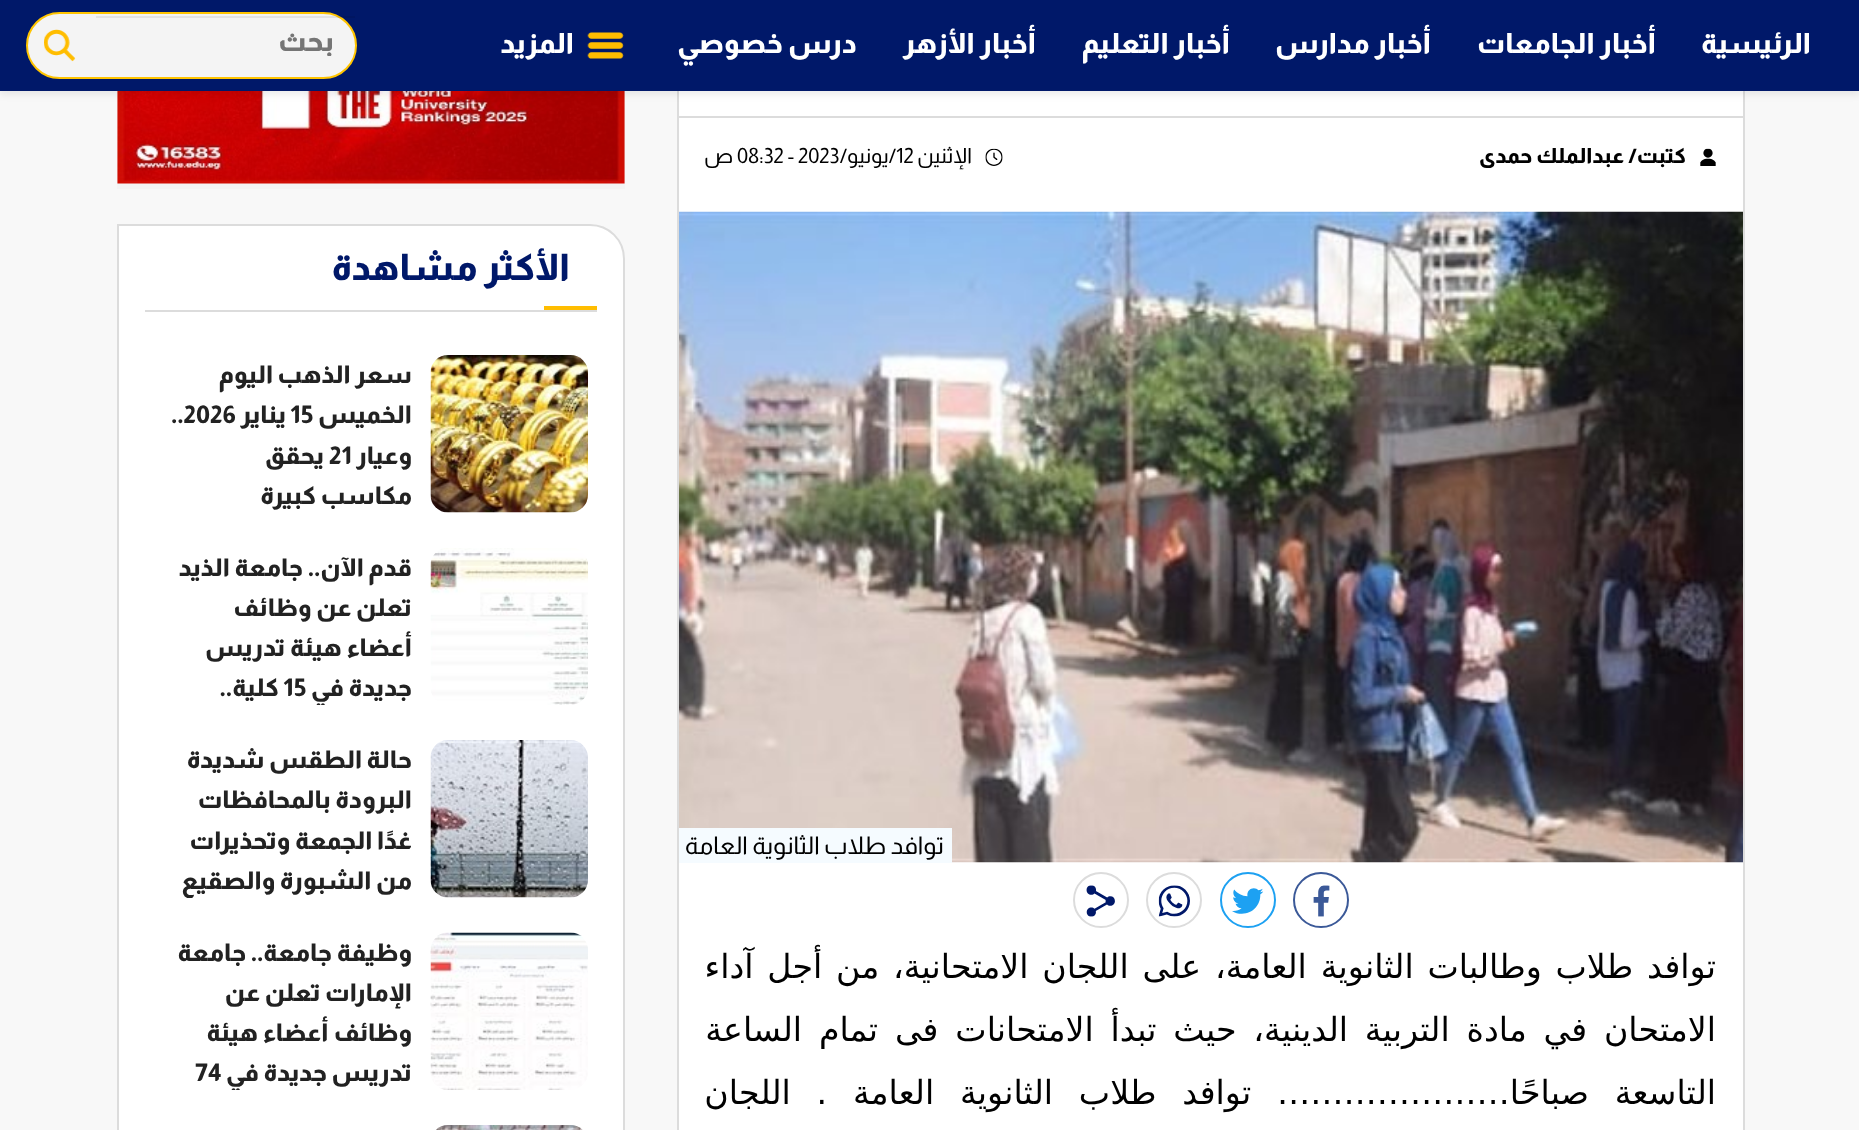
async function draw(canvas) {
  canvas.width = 1859;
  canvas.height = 1130;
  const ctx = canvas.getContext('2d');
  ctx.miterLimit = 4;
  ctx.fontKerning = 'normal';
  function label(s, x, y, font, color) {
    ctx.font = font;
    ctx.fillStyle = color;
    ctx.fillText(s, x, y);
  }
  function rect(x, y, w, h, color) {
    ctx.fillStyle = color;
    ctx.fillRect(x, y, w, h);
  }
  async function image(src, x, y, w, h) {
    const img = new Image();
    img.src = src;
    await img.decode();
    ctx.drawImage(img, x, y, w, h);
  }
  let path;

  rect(0, 0, 1859, 1130, '#f8f8f8');
  rect(679, 91, 1064, 1039, '#fff');
  ctx.strokeStyle = '#dcdcdc';
  ctx.lineWidth = 2;
  ctx.strokeRect(678, -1, 1066, 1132);
  rect(117, 91, 508, 98, '#f4f4f4');
  await image('assets/img10.png', 117, 91, 508, 93);
  ctx.fillStyle = '#00000012';
  ctx.filter = 'blur(3.5px)';
  ctx.beginPath();
  ctx.rect(0, 4, 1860, 91);
  ctx.fill();
  ctx.filter = 'none';
  rect(0, 0, 1859, 91, '#001869');
  ctx.direction = 'rtl';
  label('الرئيسية', 1811, 53, '800 28px Almarai', '#fff');
  label('أخبار الجامعات', 1656, 53, '800 28px Almarai', '#fff');
  label('أخبار مدارس', 1431, 53, '800 28px Almarai', '#fff');
  label('أخبار التعليم', 1230, 53, '800 28px Almarai', '#fff');
  label('أخبار الأزهر', 1036, 53, '800 28px Almarai', '#fff');
  label('درس خصوصي', 857, 53, '800 28px Almarai', '#fff');
  await image('assets/img1.png', 587, 32, 37, 27);
  label('المزيد', 574, 53, '800 28px Almarai', '#fff');
  ctx.fillStyle = '#f4f4f4';
  ctx.beginPath();
  ctx.roundRect(27, 13, 329, 65, 32.5);
  ctx.fill();
  ctx.strokeStyle = '#ffc400';
  ctx.stroke();
  rect(96, 16, 259, 2, '#00000012');
  ctx.save();
  ctx.beginPath();
  ctx.rect(144, 26, 190, 30);
  ctx.clip();
  label('بحث', 334, 51, '800 28px Almarai', '#757575');
  ctx.restore();
  await image('assets/img2.png', 44, 29, 32, 33);
  rect(679, 116, 1064, 2, '#dcdcdc');
  await image('assets/img3.png', 1700, 148, 16, 18);
  label('كتبت/ عبدالملك حمدى', 1686, 163, '800 21px Almarai', '#000');
  await image('assets/img4.png', 985, 148, 18, 18);
  label('الإثنين', 972, 163, '21px Almarai', '#000');
  ctx.direction = 'ltr';
  label('12', 896, 163, '21px Almarai', '#000');
  ctx.direction = 'rtl';
  label('/يونيو/', 896, 163, '21px Almarai', '#000');
  ctx.direction = 'ltr';
  label('08:32 - 2023', 737, 163, '21px Almarai', '#000');
  ctx.direction = 'rtl';
  label('ص', 733, 163, '21px Almarai', '#000');
  await image('assets/img5.png', 679, 211, 1064, 652);
  rect(679, 828, 273, 35, '#f5fbff');
  label('توافد طلاب الثانوية العامة', 944, 854, '24.5px Almarai', '#000');
  ctx.beginPath();
  ctx.arc(1321, 900, 27, 0, 2 * Math.PI);
  ctx.strokeStyle = '#3b5998';
  ctx.stroke();
  await image('assets/img6.png', 1313, 885, 17, 32);
  ctx.beginPath();
  ctx.arc(1248, 900, 27, 0, 2 * Math.PI);
  ctx.strokeStyle = '#1da1f2';
  ctx.stroke();
  await image('assets/img7.png', 1232, 888, 32, 26);
  ctx.beginPath();
  ctx.arc(1174, 900, 27, 0, 2 * Math.PI);
  ctx.strokeStyle = '#dcdcdc';
  ctx.stroke();
  await image('assets/img8.png', 1158, 885, 32, 32);
  ctx.beginPath();
  ctx.arc(1101, 900, 27, 0, 2 * Math.PI);
  ctx.stroke();
  await image('assets/img9.png', 1086, 885, 29, 32);
  ctx.wordSpacing = '3.25px';
  label('توافد طلاب وطالبات الثانوية العامة، على اللجان الامتحانية، من أجل آداء', 1716, 978, '33.25px DejaVu Sans', '#000');
  ctx.wordSpacing = '6.25px';
  label('الامتحان في مادة التربية الدينية، حيث تبدأ الامتحانات فى تمام الساعة', 1716, 1041, '33.25px DejaVu Sans', '#000');
  ctx.wordSpacing = '15.25px';
  label('التاسعة صباحًا………………… توافد طلاب الثانوية العامة . اللجان', 1716, 1104, '33.25px DejaVu Sans', '#000');
  ctx.fillStyle = '#fff';
  path = new Path2D('M118 225H590C609 225 624 240 624 259V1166H152C133 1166 118 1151 118 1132Z');
  ctx.fill(path);
  ctx.stroke(path);
  rect(145, 310, 452, 2, '#dcdcdc');
  ctx.wordSpacing = '0px';
  label('الأكثر مشاهدة', 570, 280, '800 36.5px Almarai', '#001869');
  rect(544, 306, 53, 4, '#ffbd00');
  await image('assets/img11.png', 430, 355, 158, 158);
  label('سعر الذهب اليوم', 412, 383, '800 24.5px Almarai', '#222');
  label('الخميس', 412, 423, '800 24.5px Almarai', '#222');
  ctx.direction = 'ltr';
  label('15', 290, 423, '800 24.5px Almarai', '#222');
  ctx.direction = 'rtl';
  label('يناير', 286, 423, '800 24.5px Almarai', '#222');
  ctx.direction = 'ltr';
  label('..2026', 171, 423, '800 24.5px Almarai', '#222');
  ctx.direction = 'rtl';
  label('وعيار', 412, 464, '800 24.5px Almarai', '#222');
  ctx.direction = 'ltr';
  label('21', 329, 464, '800 24.5px Almarai', '#222');
  ctx.direction = 'rtl';
  label('يحقق', 324, 464, '800 24.5px Almarai', '#222');
  label('مكاسب كبيرة', 412, 504, '800 24.5px Almarai', '#222');
  await image('assets/img12.png', 430, 548, 158, 157);
  label('قدم الآن.. جامعة الذيد', 412, 576, '800 24.5px Almarai', '#222');
  label('تعلن عن وظائف', 412, 616, '800 24.5px Almarai', '#222');
  label('أعضاء هيئة تدريس', 412, 656, '800 24.5px Almarai', '#222');
  ctx.save();
  ctx.beginPath();
  ctx.rect(172, 548, 241, 157);
  ctx.clip();
  label('جديدة في', 412, 696, '800 24.5px Almarai', '#222');
  ctx.restore();
  ctx.direction = 'ltr';
  label('15', 283, 696, '800 24.5px Almarai', '#222');
  ctx.direction = 'rtl';
  label('كلية..', 279, 696, '800 24.5px Almarai', '#222');
  await image('assets/img13.png', 430, 740, 158, 158);
  label('حالة الطقس شديدة', 412, 768, '800 24.5px Almarai', '#222');
  label('البرودة بالمحافظات', 412, 808, '800 24.5px Almarai', '#222');
  label('غدًا الجمعة وتحذيرات', 412, 849, '800 24.5px Almarai', '#222');
  ctx.save();
  ctx.beginPath();
  ctx.rect(172, 740, 241, 158);
  ctx.clip();
  label('من الشبورة والصقيع', 412, 889, '800 24.5px Almarai', '#222');
  ctx.restore();
  await image('assets/img14.png', 430, 932, 158, 158);
  label('وظيفة جامعة.. جامعة', 412, 961, '800 24.5px Almarai', '#222');
  label('الإمارات تعلن عن', 412, 1001, '800 24.5px Almarai', '#222');
  label('وظائف أعضاء هيئة', 412, 1041, '800 24.5px Almarai', '#222');
  ctx.save();
  ctx.beginPath();
  ctx.rect(172, 933, 241, 157);
  ctx.clip();
  label('تدريس جديدة في', 412, 1081, '800 24.5px Almarai', '#222');
  ctx.restore();
  ctx.direction = 'ltr';
  label('74', 195, 1081, '800 24.5px Almarai', '#222');
  await image('assets/img15.png', 436, 1125, 147, 5);
}

draw(document.querySelector('canvas'));
